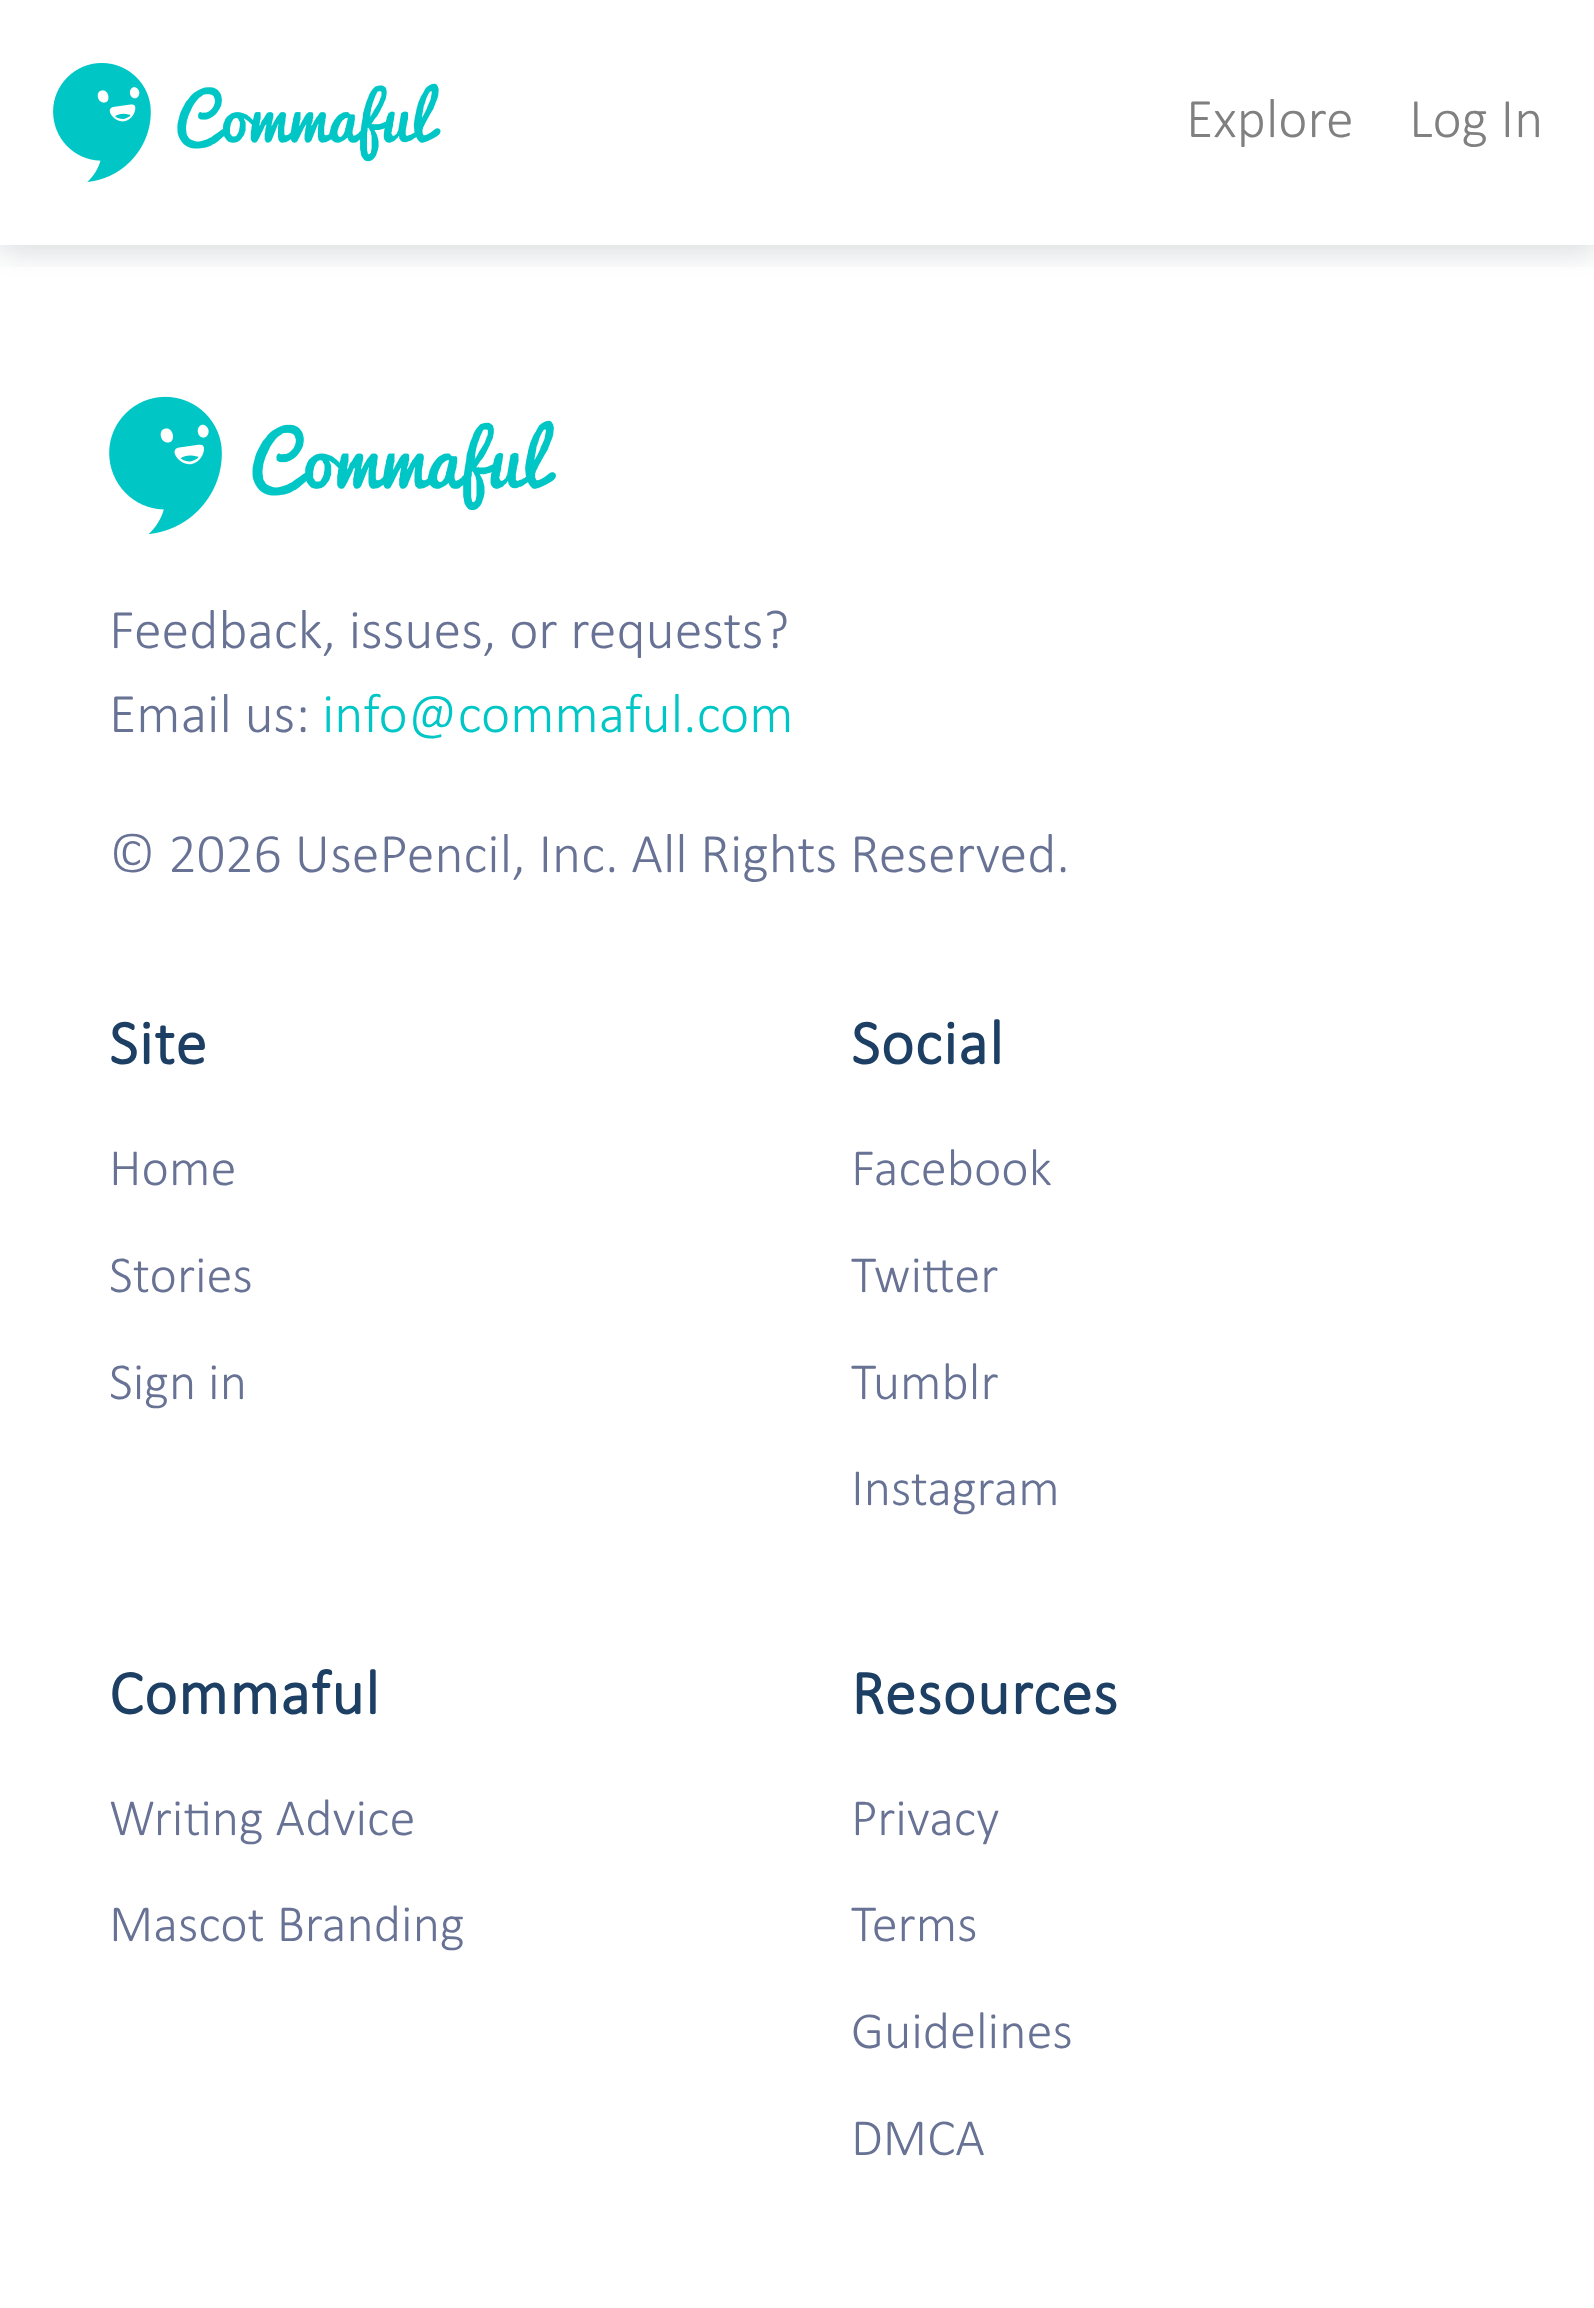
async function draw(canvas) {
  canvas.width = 1594;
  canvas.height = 2308;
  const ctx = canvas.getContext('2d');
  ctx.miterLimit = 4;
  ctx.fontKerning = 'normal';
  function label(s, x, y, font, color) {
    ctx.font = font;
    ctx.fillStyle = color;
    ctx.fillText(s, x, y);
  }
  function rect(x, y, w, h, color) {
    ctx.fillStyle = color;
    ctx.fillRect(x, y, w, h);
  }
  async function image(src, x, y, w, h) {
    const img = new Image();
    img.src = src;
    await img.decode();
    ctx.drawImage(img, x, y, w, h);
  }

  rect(0, 0, 1594, 2308, '#fff');
  ctx.save();
  ctx.beginPath();
  ctx.rect(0, 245, 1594, 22);
  ctx.clip();
  ctx.fillStyle = '#2141631a';
  ctx.filter = 'blur(17.5px)';
  ctx.beginPath();
  ctx.rect(0, 7, 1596, 245);
  ctx.fill();
  ctx.filter = 'none';
  ctx.restore();
  ctx.save();
  ctx.beginPath();
  ctx.rect(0, 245, 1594, 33);
  ctx.clip();
  ctx.fillStyle = '#dcdcdc';
  ctx.filter = 'blur(16px)';
  ctx.beginPath();
  ctx.rect(0, 0, 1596, 245);
  ctx.fill();
  ctx.filter = 'none';
  ctx.restore();
  await image('assets/img1.png', 53, 62, 388, 120);
  label('Explore', 1186, 137, '300 56px Calibri', '#808080');
  label('Log In', 1409, 137, '300 56px Calibri', '#808080');
  await image('assets/img2.png', 109, 396, 447, 139);
  label('Feedback, issues, or requests?', 109, 648, '300 56px Calibri', '#677294');
  label('Email us:', 109, 732, '300 56px Calibri', '#677294');
  label('info@commaful.com', 322, 732, '300 56px Calibri', '#00c6c6');
  label('© 2026 UsePencil, Inc. All Rights Reserved.', 109, 872, '300 56px Calibri', '#677294');
  ctx.letterSpacing = '1.25px';
  label('Site', 109, 1064, 'bold 63px Calibri', '#1c3f63');
  ctx.letterSpacing = '0px';
  label('Home', 109, 1185, '300 52.5px Calibri', '#677294');
  label('Stories', 109, 1292, '300 52.5px Calibri', '#677294');
  label('Sign in', 109, 1399, '300 52.5px Calibri', '#677294');
  ctx.letterSpacing = '1.25px';
  label('Social', 851, 1064, 'bold 63px Calibri', '#1c3f63');
  ctx.letterSpacing = '0px';
  label('Facebook', 851, 1185, '300 52.5px Calibri', '#677294');
  label('Twitter', 851, 1292, '300 52.5px Calibri', '#677294');
  label('Tumblr', 851, 1399, '300 52.5px Calibri', '#677294');
  label('Instagram', 851, 1505, '300 52.5px Calibri', '#677294');
  ctx.letterSpacing = '1.25px';
  label('Commaful', 109, 1714, 'bold 63px Calibri', '#1c3f63');
  ctx.letterSpacing = '0px';
  label('Writing Advice', 109, 1835, '300 52.5px Calibri', '#677294');
  label('Mascot Branding', 109, 1941, '300 52.5px Calibri', '#677294');
  ctx.letterSpacing = '1.25px';
  label('Resources', 851, 1714, 'bold 63px Calibri', '#1c3f63');
  ctx.letterSpacing = '0px';
  label('Privacy', 851, 1835, '300 52.5px Calibri', '#677294');
  label('Terms', 851, 1941, '300 52.5px Calibri', '#677294');
  label('Guidelines', 851, 2048, '300 52.5px Calibri', '#677294');
  label('DMCA', 851, 2155, '300 52.5px Calibri', '#677294');
}

draw(document.querySelector('canvas'));
